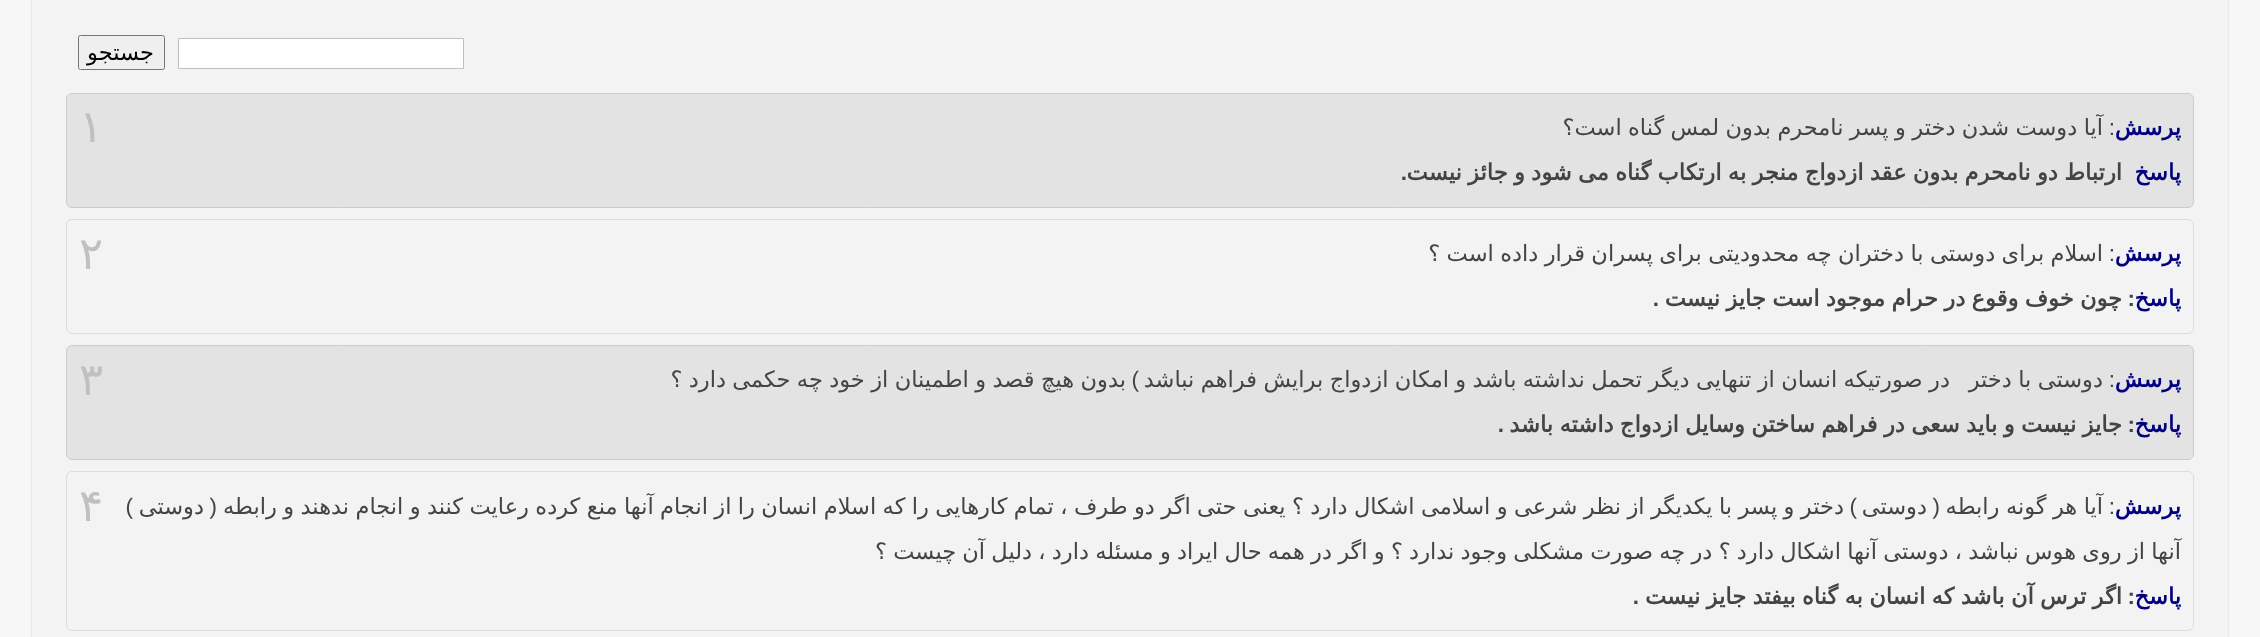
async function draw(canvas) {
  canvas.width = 2260;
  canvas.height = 637;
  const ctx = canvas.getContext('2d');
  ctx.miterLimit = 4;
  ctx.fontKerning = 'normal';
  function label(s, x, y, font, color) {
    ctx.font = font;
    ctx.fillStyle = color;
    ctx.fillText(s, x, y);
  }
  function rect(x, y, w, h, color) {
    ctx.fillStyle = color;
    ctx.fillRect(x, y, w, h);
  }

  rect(0, 0, 2260, 637, '#f7f7f7');
  ctx.fillStyle = '#f3f3f3';
  ctx.beginPath();
  ctx.rect(31.5, -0.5, 2197, 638);
  ctx.fill();
  ctx.strokeStyle = '#e8e8e8';
  ctx.stroke();
  ctx.fillStyle = '#fff';
  ctx.beginPath();
  ctx.rect(178.5, 38.5, 285, 30);
  ctx.fill();
  ctx.strokeStyle = '#c0c0c0';
  ctx.stroke();
  ctx.fillStyle = '#efefef';
  ctx.beginPath();
  ctx.roundRect(78.5, 35.5, 86, 34, 2);
  ctx.fill();
  ctx.strokeStyle = '#767676';
  ctx.stroke();
  ctx.direction = 'rtl';
  label('جستجو', 154, 60, '22.5px DejaVu Sans', '#000');
  ctx.fillStyle = '#e3e3e3';
  ctx.beginPath();
  ctx.roundRect(66.5, 93.5, 2127, 114, 5.5);
  ctx.fill();
  ctx.strokeStyle = '#ccc';
  ctx.stroke();
  label('پرسش', 2181, 135, 'bold 22.5px DejaVu Sans', '#000080');
  ctx.wordSpacing = '-0.75px';
  label('آیا دوست شدن دختر و پسر نامحرم بدون لمس گناه است؟', 2103, 135, '22.5px DejaVu Sans', '#444');
  ctx.wordSpacing = '0px';
  label(':', 2115, 135, '22.5px Liberation Sans', '#444');
  label('پاسخ', 2181, 180, 'bold 22.5px DejaVu Sans', '#000080');
  ctx.wordSpacing = '-0.8px';
  label('ارتباط دو نامحرم بدون عقد ازدواج منجر به ارتکاب گناه می شود و جائز نیست', 2122, 180, 'bold 22.5px DejaVu Sans', '#444');
  ctx.wordSpacing = '0px';
  label('.', 1407, 180, 'bold 22.5px Liberation Sans', '#444');
  ctx.direction = 'ltr';
  label('۱', 79, 142, '45px DejaVu Sans', '#c0c0c0');
  ctx.beginPath();
  ctx.roundRect(66.5, 219.5, 2127, 114, 5.5);
  ctx.strokeStyle = '#ddd';
  ctx.stroke();
  ctx.direction = 'rtl';
  label('پرسش', 2181, 261, 'bold 22.5px DejaVu Sans', '#000080');
  ctx.wordSpacing = '-0.75px';
  label('اسلام برای دوستی با دختران چه محدودیتی برای پسران قرار داده است ؟', 2103, 261, '22.5px DejaVu Sans', '#444');
  ctx.wordSpacing = '0px';
  label(':', 2115, 261, '22.5px Liberation Sans', '#444');
  label('پاسخ', 2181, 306, 'bold 22.5px DejaVu Sans', '#000080');
  label(':', 2135, 306, 'bold 22.5px Liberation Sans', '#444');
  ctx.wordSpacing = '-0.75px';
  label('چون خوف وقوع در حرام موجود است جایز نیست', 2122, 306, 'bold 22.5px DejaVu Sans', '#444');
  ctx.wordSpacing = '0px';
  label('.', 1659, 306, 'bold 22.5px Liberation Sans', '#444');
  ctx.direction = 'ltr';
  label('۲', 79, 269, '45px DejaVu Sans', '#c0c0c0');
  ctx.fillStyle = '#e3e3e3';
  ctx.beginPath();
  ctx.roundRect(66.5, 345.5, 2127, 114, 5.5);
  ctx.fill();
  ctx.strokeStyle = '#ccc';
  ctx.stroke();
  ctx.direction = 'rtl';
  label('پرسش', 2181, 387, 'bold 22.5px DejaVu Sans', '#000080');
  label(':', 2115, 387, '22.5px Liberation Sans', '#444');
  ctx.wordSpacing = '-0.75px';
  label('دوستی با دختر', 2103, 387, '22.5px DejaVu Sans', '#444');
  label('در صورتیکه انسان از تنهایی دیگر تحمل نداشته باشد و امکان ازدواج برایش فراهم نباشد', 1950, 387, '22.5px DejaVu Sans', '#444');
  label('بدون هیچ قصد و اطمینان از خود چه حکمی دارد ؟', 1126, 387, '22.5px DejaVu Sans', '#444');
  ctx.wordSpacing = '0px';
  label(')', 1139, 387, '22.5px Liberation Sans', '#444');
  label('پاسخ', 2181, 432, 'bold 22.5px DejaVu Sans', '#000080');
  label(':', 2135, 432, 'bold 22.5px Liberation Sans', '#444');
  ctx.wordSpacing = '-0.75px';
  label('جایز نیست و باید سعی در فراهم ساختن وسایل ازدواج داشته باشد', 2122, 432, 'bold 22.5px DejaVu Sans', '#444');
  ctx.wordSpacing = '0px';
  label('.', 1504, 432, 'bold 22.5px Liberation Sans', '#444');
  ctx.direction = 'ltr';
  label('۳', 79, 395, '45px DejaVu Sans', '#c0c0c0');
  ctx.beginPath();
  ctx.roundRect(66.5, 471.5, 2127, 159, 5.5);
  ctx.strokeStyle = '#ddd';
  ctx.stroke();
  ctx.wordSpacing = '-0.75px';
  ctx.direction = 'rtl';
  label('آیا هر گونه رابطه', 2103, 514, '22.5px DejaVu Sans', '#444');
  label('دختر و پسر با یکدیگر از نظر شرعی و اسلامی اشکال دارد ؟ یعنی حتی اگر دو طرف ، تمام کارهایی را که اسلام انسان را از انجام آنها منع کرده رعایت کنند و انجام ندهند و رابطه', 1844, 514, '22.5px DejaVu Sans', '#444');
  ctx.wordSpacing = '0px';
  label('(', 217, 514, '22.5px Liberation Sans', '#444');
  label(')', 133, 514, '22.5px Liberation Sans', '#444');
  label('پرسش', 2181, 514, 'bold 22.5px DejaVu Sans', '#000080');
  label(':', 2115, 514, '22.5px Liberation Sans', '#444');
  label('(', 1940, 514, '22.5px Liberation Sans', '#444');
  label('دوستی', 1927, 514, '22.5px DejaVu Sans', '#444');
  label(')', 1857, 514, '22.5px Liberation Sans', '#444');
  label('دوستی', 204, 514, '22.5px DejaVu Sans', '#444');
  ctx.wordSpacing = '-0.9px';
  label('آنها از روی هوس نباشد ، دوستی آنها اشکال دارد ؟ در چه صورت مشکلی وجود ندارد ؟ و اگر در همه حال ایراد و مسئله دارد ، دلیل آن چیست ؟', 2181, 559, '22.5px DejaVu Sans', '#444');
  ctx.wordSpacing = '0px';
  label('پاسخ', 2181, 604, 'bold 22.5px DejaVu Sans', '#000080');
  label(':', 2135, 604, 'bold 22.5px Liberation Sans', '#444');
  ctx.wordSpacing = '-0.75px';
  label('اگر ترس آن باشد که انسان به گناه بیفتد جایز نیست', 2122, 604, 'bold 22.5px DejaVu Sans', '#444');
  ctx.wordSpacing = '0px';
  label('.', 1639, 604, 'bold 22.5px Liberation Sans', '#444');
  ctx.direction = 'ltr';
  label('۴', 79, 521, '45px DejaVu Sans', '#c0c0c0');
}

draw(document.querySelector('canvas'));
